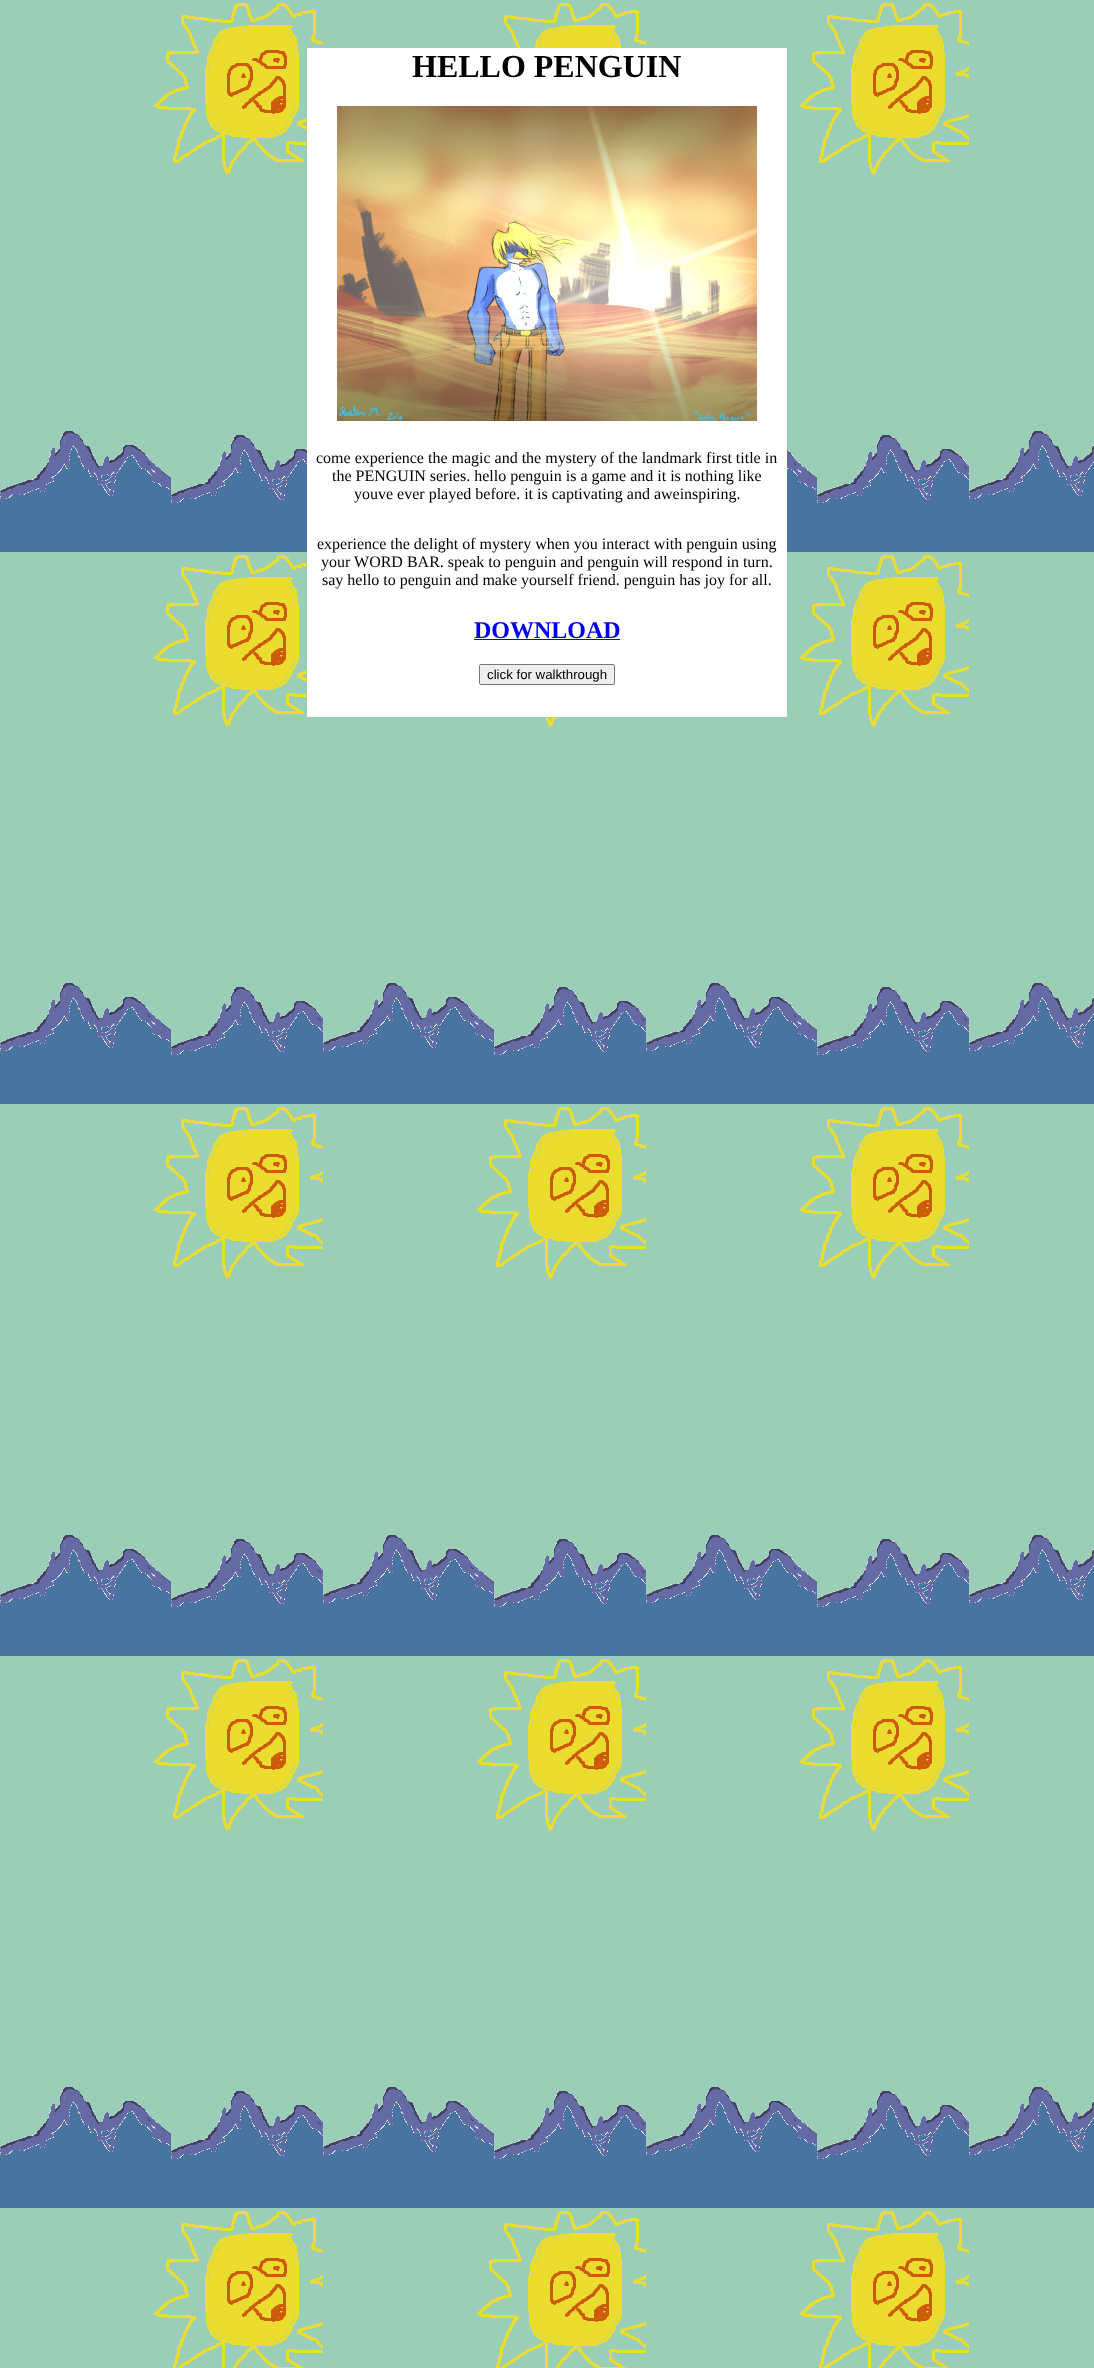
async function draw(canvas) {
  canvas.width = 1094;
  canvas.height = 2368;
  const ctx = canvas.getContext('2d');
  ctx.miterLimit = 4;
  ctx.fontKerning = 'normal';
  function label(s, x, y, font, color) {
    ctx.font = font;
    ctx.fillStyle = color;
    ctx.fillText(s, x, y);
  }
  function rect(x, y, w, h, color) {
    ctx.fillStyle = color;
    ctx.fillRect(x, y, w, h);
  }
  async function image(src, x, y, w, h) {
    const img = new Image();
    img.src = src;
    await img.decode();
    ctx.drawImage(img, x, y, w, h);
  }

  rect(0, 0, 1094, 2368, '#fff');
  await image('assets/img1.png', 0, 0, 1094, 2368);
  rect(307, 48, 480, 669, '#fff');
  label('HELLO PENGUIN', 412, 77, 'bold 32px Liberation Serif', '#000');
  await image('assets/img2.png', 337, 106, 420, 315);
  label('come experience the magic and the mystery of the landmark first title in', 316, 463, '16px Liberation Serif', '#000');
  label('the PENGUIN series. hello penguin is a game and it is nothing like', 332, 481, '16px Liberation Serif', '#000');
  label('youve ever played before. it is captivating and aweinspiring.', 354, 499, '16px Liberation Serif', '#000');
  label('experience the delight of mystery when you interact with penguin using', 317, 549, '16px Liberation Serif', '#000');
  label('your WORD BAR. speak to penguin and penguin will respond in turn.', 321, 567, '16px Liberation Serif', '#000');
  label('say hello to penguin and make yourself friend. penguin has joy for all.', 322, 585, '16px Liberation Serif', '#000');
  label('DOWNLOAD', 474, 638, 'bold 24px Liberation Serif', '#00e');
  rect(474, 639, 146, 1, '#00e');
  ctx.fillStyle = '#efefef';
  ctx.beginPath();
  ctx.roundRect(479.5, 664.5, 135, 20, 1.5);
  ctx.fill();
  ctx.strokeStyle = '#767676';
  ctx.stroke();
  label('click for walkthrough', 487, 679, '13.25px Liberation Sans', '#000');
}

draw(document.querySelector('canvas'));
